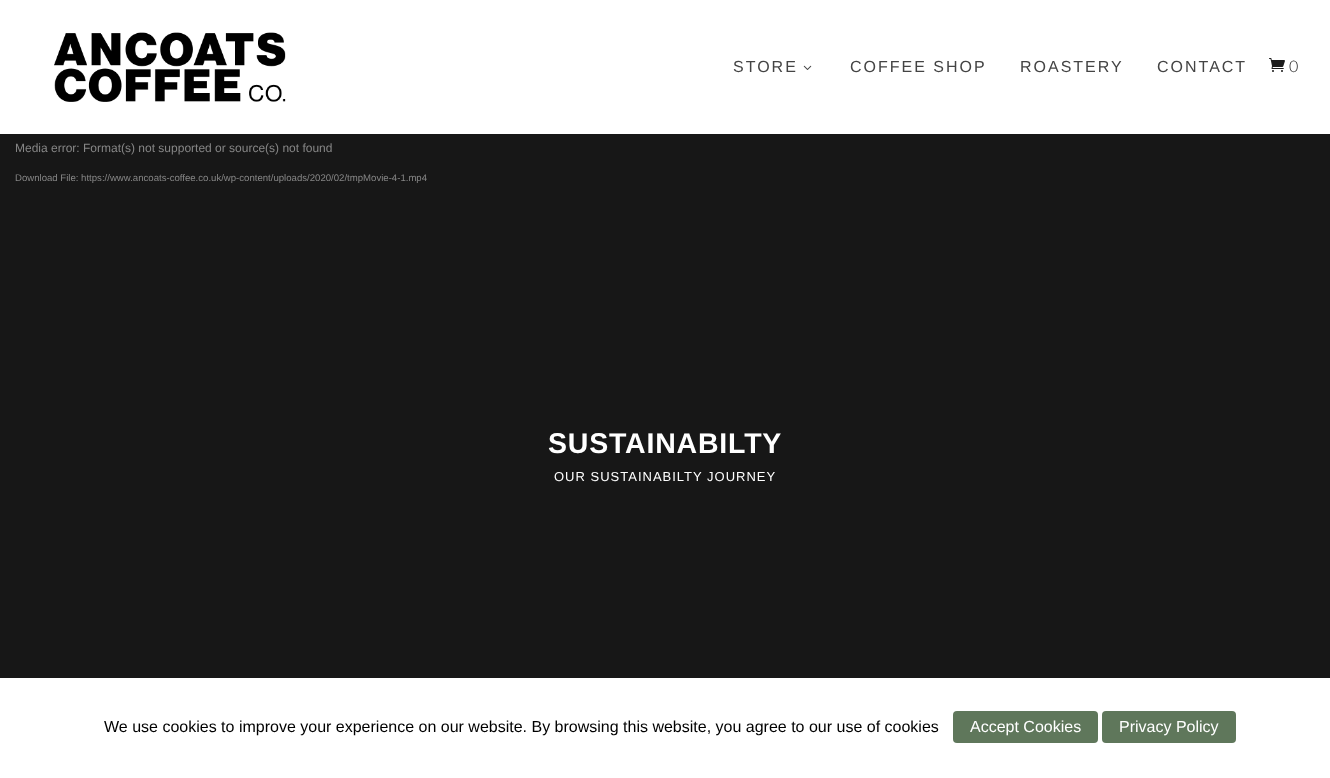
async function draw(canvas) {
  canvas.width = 1330;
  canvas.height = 778;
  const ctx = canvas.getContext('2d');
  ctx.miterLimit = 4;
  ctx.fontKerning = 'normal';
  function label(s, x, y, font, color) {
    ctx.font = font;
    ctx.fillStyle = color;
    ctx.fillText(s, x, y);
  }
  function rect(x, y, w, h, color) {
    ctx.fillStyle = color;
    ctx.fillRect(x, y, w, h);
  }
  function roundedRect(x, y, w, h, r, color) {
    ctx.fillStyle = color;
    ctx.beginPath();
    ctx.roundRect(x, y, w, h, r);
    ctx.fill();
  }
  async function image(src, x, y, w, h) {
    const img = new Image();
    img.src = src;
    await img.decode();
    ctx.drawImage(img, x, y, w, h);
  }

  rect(0, 0, 1330, 778, '#fff');
  await image('assets/img1.png', 54, 32, 232, 70);
  ctx.letterSpacing = '2px';
  label('STORE', 733, 72, '16px Liberation Sans', '#444');
  await image('assets/img2.png', 803, 65, 9, 5);
  label('COFFEE SHOP', 850, 72, '16px Liberation Sans', '#444');
  label('ROASTERY', 1020, 72, '16px Liberation Sans', '#444');
  label('CONTACT', 1157, 72, '16px Liberation Sans', '#444');
  await image('assets/img3.png', 1269, 58, 16, 14);
  ctx.letterSpacing = '0px';
  label('0', 1289, 72, '300 16px Lato', '#1c1c1c');
  rect(0, 134, 1330, 544, '#171717');
  label('Media error: Format(s) not supported or source(s) not found', 15, 152, '12px Liberation Sans', '#868686');
  label('Download File: https://www.ancoats-coffee.co.uk/wp-content/uploads/2020/02/tmpMovie-4-1.mp4', 15, 181, '9.6px Liberation Sans', '#868686');
  ctx.letterSpacing = '0.8px';
  label('SUSTAINABILTY', 548, 453, 'bold 28.5px Liberation Sans', '#fff');
  ctx.letterSpacing = '1px';
  label('OUR SUSTAINABILTY JOURNEY', 554, 481, '13px Liberation Sans', '#fff');
  ctx.letterSpacing = '0px';
  label('We use cookies to improve your experience on our website. By browsing this website, you agree to our use of cookies', 104, 732, '16px Liberation Sans', '#000');
  roundedRect(953, 711, 145, 32, 4, '#5f775b');
  label('Accept Cookies', 970, 732, '16px Liberation Sans', '#fff');
  roundedRect(1102, 711, 134, 32, 4, '#5f775b');
  label('Privacy Policy', 1119, 732, '16px Liberation Sans', '#fff');
}

draw(document.querySelector('canvas'));
